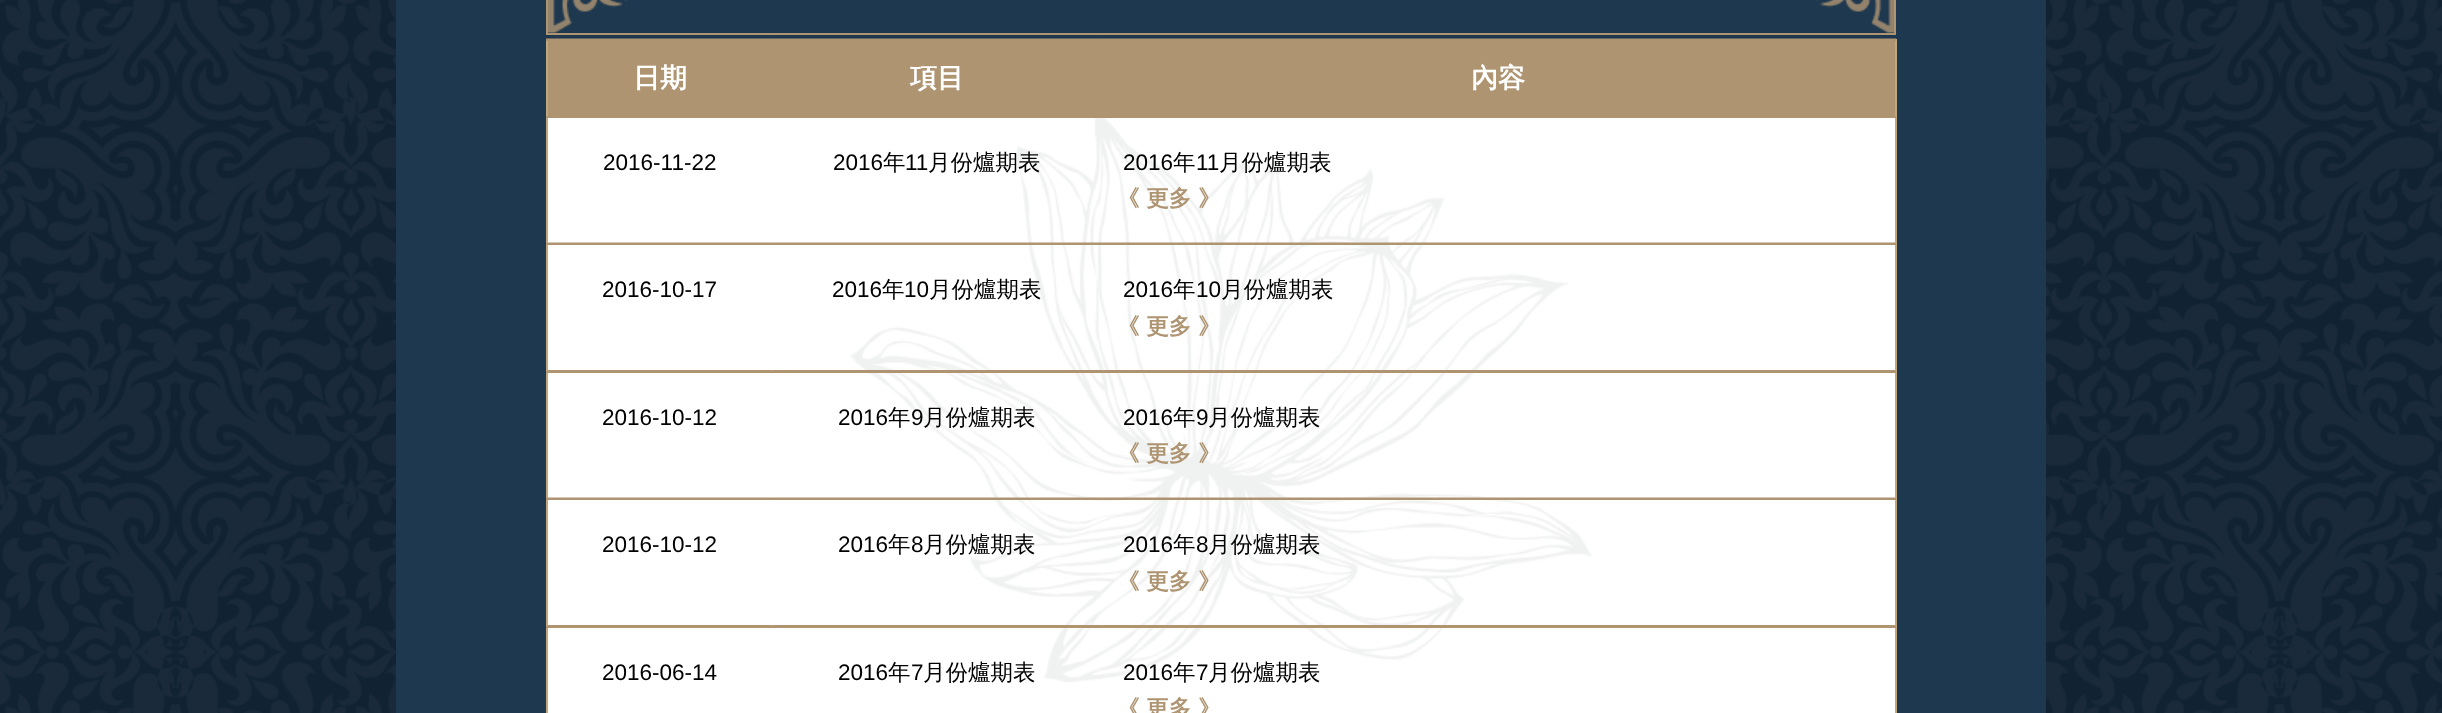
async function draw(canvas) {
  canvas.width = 2442;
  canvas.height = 713;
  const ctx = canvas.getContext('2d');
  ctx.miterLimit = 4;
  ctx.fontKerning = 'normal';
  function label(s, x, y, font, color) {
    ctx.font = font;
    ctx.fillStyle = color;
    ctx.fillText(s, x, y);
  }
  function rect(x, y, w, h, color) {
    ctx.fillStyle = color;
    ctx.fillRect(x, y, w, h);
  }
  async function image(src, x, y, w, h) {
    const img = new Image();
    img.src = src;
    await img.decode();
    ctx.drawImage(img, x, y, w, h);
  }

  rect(0, 0, 2442, 713, '#123');
  await image('assets/img1.png', 0, 0, 2442, 713);
  rect(396, 0, 1650, 713, '#1e384f');
  ctx.strokeStyle = '#ae9471';
  ctx.lineWidth = 2;
  ctx.strokeRect(547, -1, 1348, 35);
  await image('assets/img2.png', 548, 0, 80, 33);
  await image('assets/img3.png', 1815, 0, 79, 33);
  rect(548, 118, 1347, 595, '#fff');
  await image('assets/img4.png', 546, 38, 1350, 644);
  rect(1895, 39, 2, 674, '#c1a77c');
  rect(546, 39, 2, 674, '#c1a77c');
  rect(546, 39, 1350, 2, '#ae9471');
  rect(548, 41, 555, 75, '#ae9471');
  label('日期', 633, 87, 'bold 27px WenQuanYi Zen Hei', '#fff');
  label('項目', 910, 87, 'bold 27px WenQuanYi Zen Hei', '#fff');
  rect(1103, 41, 792, 74, '#ae9471');
  label('內容', 1471, 87, 'bold 27px WenQuanYi Zen Hei', '#fff');
  rect(546, 116, 1350, 2, '#ae9471');
  rect(546, 243, 1350, 2, '#ae9471');
  label('2016-11-22', 603, 170, '22.5px Liberation Sans', '#000');
  label('2016', 833, 170, '22.5px Liberation Sans', '#000');
  label('年', 883, 170, '500 22.5px WenQuanYi Zen Hei', '#000');
  label('11', 905, 170, '22.5px Liberation Sans', '#000');
  label('月份爐期表', 928, 170, '500 22.5px WenQuanYi Zen Hei', '#000');
  label('2016', 1123, 170, '22.5px Liberation Sans', '#000');
  label('年', 1173, 170, '500 22.5px WenQuanYi Zen Hei', '#000');
  label('11', 1196, 170, '22.5px Liberation Sans', '#000');
  label('月份爐期表', 1219, 170, '500 22.5px WenQuanYi Zen Hei', '#000');
  label('《 更多 》', 1117, 206, 'bold 22.5px WenQuanYi Zen Hei', '#ae9471');
  rect(546, 371, 1350, 2, '#ae9471');
  label('2016-10-17', 602, 297, '22.5px Liberation Sans', '#000');
  label('2016', 832, 297, '22.5px Liberation Sans', '#000');
  label('年', 882, 297, '500 22.5px WenQuanYi Zen Hei', '#000');
  label('10', 904, 297, '22.5px Liberation Sans', '#000');
  label('月份爐期表', 929, 297, '500 22.5px WenQuanYi Zen Hei', '#000');
  label('2016', 1123, 297, '22.5px Liberation Sans', '#000');
  label('年', 1173, 297, '500 22.5px WenQuanYi Zen Hei', '#000');
  label('10', 1196, 297, '22.5px Liberation Sans', '#000');
  label('月份爐期表', 1221, 297, '500 22.5px WenQuanYi Zen Hei', '#000');
  label('《 更多 》', 1117, 334, 'bold 22.5px WenQuanYi Zen Hei', '#ae9471');
  rect(546, 498, 1350, 2, '#ae9471');
  label('2016-10-12', 602, 425, '22.5px Liberation Sans', '#000');
  label('2016', 838, 425, '22.5px Liberation Sans', '#000');
  label('年', 888, 425, '500 22.5px WenQuanYi Zen Hei', '#000');
  label('9', 911, 425, '22.5px Liberation Sans', '#000');
  label('月份爐期表', 923, 425, '500 22.5px WenQuanYi Zen Hei', '#000');
  label('2016', 1123, 425, '22.5px Liberation Sans', '#000');
  label('年', 1173, 425, '500 22.5px WenQuanYi Zen Hei', '#000');
  label('9', 1196, 425, '22.5px Liberation Sans', '#000');
  label('月份爐期表', 1208, 425, '500 22.5px WenQuanYi Zen Hei', '#000');
  label('《 更多 》', 1117, 461, 'bold 22.5px WenQuanYi Zen Hei', '#ae9471');
  rect(546, 626, 1350, 2, '#ae9471');
  label('2016-10-12', 602, 552, '22.5px Liberation Sans', '#000');
  label('2016', 838, 552, '22.5px Liberation Sans', '#000');
  label('年', 888, 552, '500 22.5px WenQuanYi Zen Hei', '#000');
  label('8', 911, 552, '22.5px Liberation Sans', '#000');
  label('月份爐期表', 923, 552, '500 22.5px WenQuanYi Zen Hei', '#000');
  label('2016', 1123, 552, '22.5px Liberation Sans', '#000');
  label('年', 1173, 552, '500 22.5px WenQuanYi Zen Hei', '#000');
  label('8', 1196, 552, '22.5px Liberation Sans', '#000');
  label('月份爐期表', 1208, 552, '500 22.5px WenQuanYi Zen Hei', '#000');
  label('《 更多 》', 1117, 589, 'bold 22.5px WenQuanYi Zen Hei', '#ae9471');
  label('2016-06-14', 602, 680, '22.5px Liberation Sans', '#000');
  label('2016', 838, 680, '22.5px Liberation Sans', '#000');
  label('年', 888, 680, '500 22.5px WenQuanYi Zen Hei', '#000');
  label('7', 911, 680, '22.5px Liberation Sans', '#000');
  label('月份爐期表', 923, 680, '500 22.5px WenQuanYi Zen Hei', '#000');
  label('2016', 1123, 680, '22.5px Liberation Sans', '#000');
  label('年', 1173, 680, '500 22.5px WenQuanYi Zen Hei', '#000');
  label('7', 1196, 680, '22.5px Liberation Sans', '#000');
  label('月份爐期表', 1208, 680, '500 22.5px WenQuanYi Zen Hei', '#000');
  label('《 更多 》', 1117, 716, 'bold 22.5px WenQuanYi Zen Hei', '#ae9471');
}

draw(document.querySelector('canvas'));
